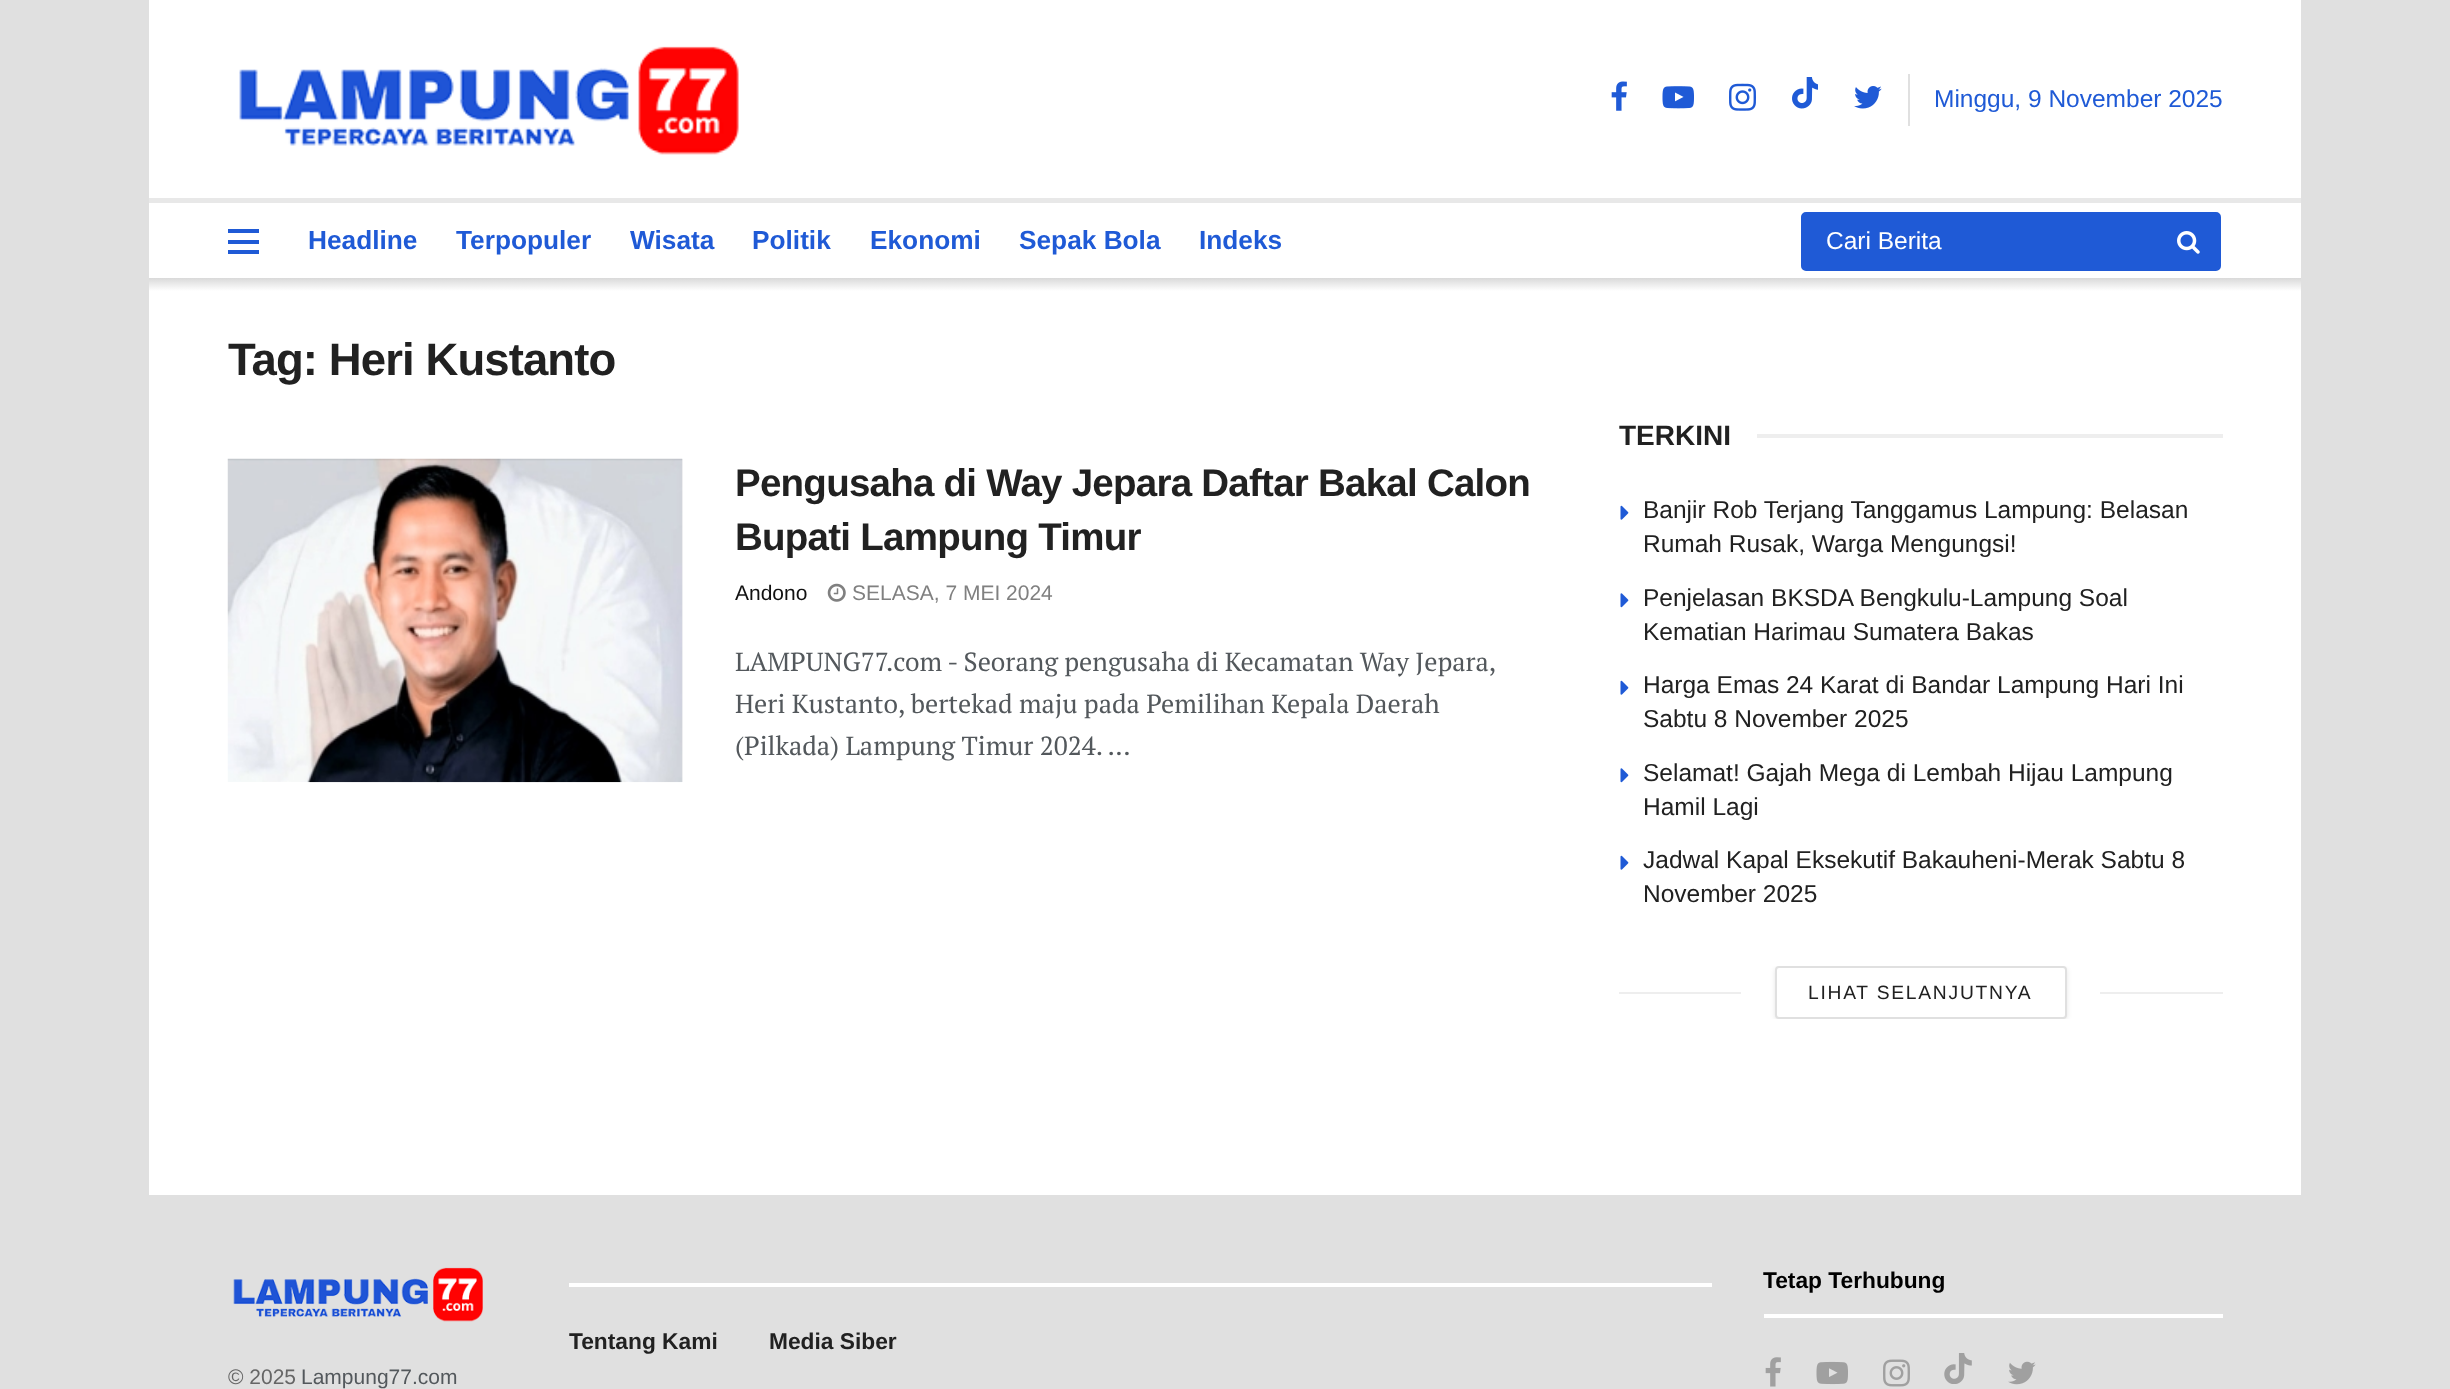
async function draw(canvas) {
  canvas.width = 2450;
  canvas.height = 1389;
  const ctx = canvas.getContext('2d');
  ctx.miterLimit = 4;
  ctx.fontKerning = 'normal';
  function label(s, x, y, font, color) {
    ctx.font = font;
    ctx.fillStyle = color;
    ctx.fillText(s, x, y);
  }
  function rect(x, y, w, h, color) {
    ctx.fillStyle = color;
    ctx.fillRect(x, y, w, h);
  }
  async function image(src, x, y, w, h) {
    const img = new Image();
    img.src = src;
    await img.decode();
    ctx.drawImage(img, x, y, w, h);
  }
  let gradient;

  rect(0, 0, 2450, 1389, '#e0e0e0');
  rect(149, 0, 2152, 198, '#fff');
  rect(149, 198, 2152, 5, '#e8e8e8');
  await image('assets/img1.png', 239, 46, 500, 109);
  await image('assets/img2.png', 1611, 81, 16, 30);
  await image('assets/img3.png', 1662, 86, 32, 23);
  await image('assets/img4.png', 1729, 83, 27, 28);
  await image('assets/img5.png', 1792, 77, 26, 32);
  await image('assets/img6.png', 1854, 86, 28, 23);
  rect(1908, 74, 2, 52, '#e0e0e0');
  label('Minggu, 9 November 2025', 1934, 107, '24.5px Liberation Sans', '#1f5ad6');
  rect(149, 203, 2152, 75, '#fff');
  rect(228, 229, 31, 4, '#1f5ad6');
  rect(228, 240, 31, 4, '#1f5ad6');
  rect(228, 250, 31, 4, '#1f5ad6');
  label('Headline', 308, 249, 'bold 26.25px Liberation Sans', '#1f5ad6');
  label('Terpopuler', 456, 249, 'bold 26.25px Liberation Sans', '#1f5ad6');
  label('Wisata', 630, 249, 'bold 26.25px Liberation Sans', '#1f5ad6');
  label('Politik', 752, 249, 'bold 26.25px Liberation Sans', '#1f5ad6');
  label('Ekonomi', 870, 249, 'bold 26.25px Liberation Sans', '#1f5ad6');
  label('Sepak Bola', 1019, 249, 'bold 26.25px Liberation Sans', '#1f5ad6');
  label('Indeks', 1199, 249, 'bold 26.25px Liberation Sans', '#1f5ad6');
  ctx.beginPath();
  ctx.roundRect(1800, 211, 422, 61, 6);
  ctx.fill();
  ctx.strokeStyle = '#fff';
  ctx.lineWidth = 2;
  ctx.stroke();
  label('Cari Berita', 1826, 249, '24.5px Liberation Sans', '#fff');
  await image('assets/img7.png', 2177, 231, 23, 23);
  gradient = ctx.createLinearGradient(1225, 278, 1225, 291);
  gradient.addColorStop(0, '#d9d9d9');
  gradient.addColorStop(1, '#fff');
  ctx.fillStyle = gradient;
  ctx.fillRect(149, 278, 2152, 13);
  rect(149, 291, 2152, 904, '#fff');
  ctx.letterSpacing = '-0.9px';
  label('Tag: Heri Kustanto', 228, 375, 'bold 45.5px Liberation Sans', '#212121');
  rect(682, 459, 1, 323, '#f7f7f7');
  await image('assets/img8.png', 227, 458, 456, 325);
  ctx.letterSpacing = '-0.75px';
  label('Pengusaha di Way Jepara Daftar Bakal Calon', 735, 496, 'bold 38.5px Liberation Sans', '#212121');
  label('Bupati Lampung Timur', 735, 550, 'bold 38.5px Liberation Sans', '#212121');
  ctx.letterSpacing = '0px';
  label('Andono', 735, 600, '21px Liberation Sans', '#111');
  await image('assets/img9.png', 827, 583, 19, 19);
  label('SELASA, 7 MEI 2024', 852, 600, '21px Liberation Sans', '#808080');
  ctx.wordSpacing = '-0.25px';
  label('LAMPUNG77.com - Seorang pengusaha di Kecamatan Way Jepara,', 735, 671, '26.25px PT Serif', '#53585c');
  ctx.wordSpacing = '0px';
  label('Heri Kustanto, bertekad maju pada Pemilihan Kepala Daerah', 735, 713, '26.25px PT Serif', '#53585c');
  label('(Pilkada) Lampung Timur 2024. ...', 735, 755, '26.25px PT Serif', '#53585c');
  label('TERKINI', 1619, 445, 'bold 28px Liberation Sans', '#212121');
  rect(1757, 434, 466, 4, '#eee');
  await image('assets/img10.png', 1620, 505, 9, 15);
  label('Banjir Rob Terjang Tanggamus Lampung: Belasan', 1643, 518, '24.5px Liberation Sans', '#212121');
  label('Rumah Rusak, Warga Mengungsi!', 1643, 552, '24.5px Liberation Sans', '#212121');
  await image('assets/img11.png', 1620, 593, 9, 15);
  label('Penjelasan BKSDA Bengkulu-Lampung Soal', 1643, 606, '24.5px Liberation Sans', '#212121');
  label('Kematian Harimau Sumatera Bakas', 1643, 640, '24.5px Liberation Sans', '#212121');
  await image('assets/img10.png', 1620, 680, 9, 15);
  label('Harga Emas 24 Karat di Bandar Lampung Hari Ini', 1643, 693, '24.5px Liberation Sans', '#212121');
  label('Sabtu 8 November 2025', 1643, 727, '24.5px Liberation Sans', '#212121');
  await image('assets/img11.png', 1620, 768, 9, 15);
  label('Selamat! Gajah Mega di Lembah Hijau Lampung', 1643, 781, '24.5px Liberation Sans', '#212121');
  label('Hamil Lagi', 1643, 815, '24.5px Liberation Sans', '#212121');
  await image('assets/img10.png', 1620, 855, 9, 15);
  label('Jadwal Kapal Eksekutif Bakauheni-Merak Sabtu 8', 1643, 868, '24.5px Liberation Sans', '#212121');
  label('November 2025', 1643, 902, '24.5px Liberation Sans', '#212121');
  ctx.save();
  ctx.beginPath();
  ctx.rect(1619, 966, 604, 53);
  ctx.clip();
  ctx.fillStyle = '#0000001a';
  ctx.filter = 'blur(2.5px)';
  ctx.beginPath();
  ctx.roundRect(1775, 968, 292, 52, 4);
  ctx.fill();
  ctx.filter = 'none';
  ctx.restore();
  ctx.fillStyle = '#fff';
  ctx.beginPath();
  ctx.roundRect(1776, 967, 290, 51, 3);
  ctx.fill();
  ctx.strokeStyle = '#e0e0e0';
  ctx.stroke();
  rect(1619, 992, 122, 2, '#eee');
  ctx.letterSpacing = '1.75px';
  label('LIHAT SELANJUTNYA', 1808, 999, '19.25px Liberation Sans', '#212121');
  rect(2100, 992, 123, 2, '#eee');
  rect(1764, 1314, 459, 4, '#fff');
  ctx.letterSpacing = '0px';
  label('Tetap Terhubung', 1763, 1288, 'bold 22.75px Liberation Sans', '#000');
  await image('assets/img12.png', 1765, 1357, 16, 30);
  await image('assets/img13.png', 1816, 1361, 32, 24);
  await image('assets/img14.png', 1883, 1359, 27, 28);
  await image('assets/img15.png', 1944, 1353, 28, 31);
  await image('assets/img16.png', 2008, 1361, 28, 24);
  rect(569, 1283, 1143, 4, '#fff');
  label('Tentang Kami', 569, 1349, 'bold 22.75px Liberation Sans', '#212121');
  label('Media Siber', 769, 1349, 'bold 22.75px Liberation Sans', '#212121');
  await image('assets/img17.png', 233, 1267, 250, 55);
  label('© 2025', 228, 1384, '21px Liberation Sans', '#666');
  label('Lampung77.com', 301, 1384, '21px Liberation Sans', '#53585c');
}

draw(document.querySelector('canvas'));
